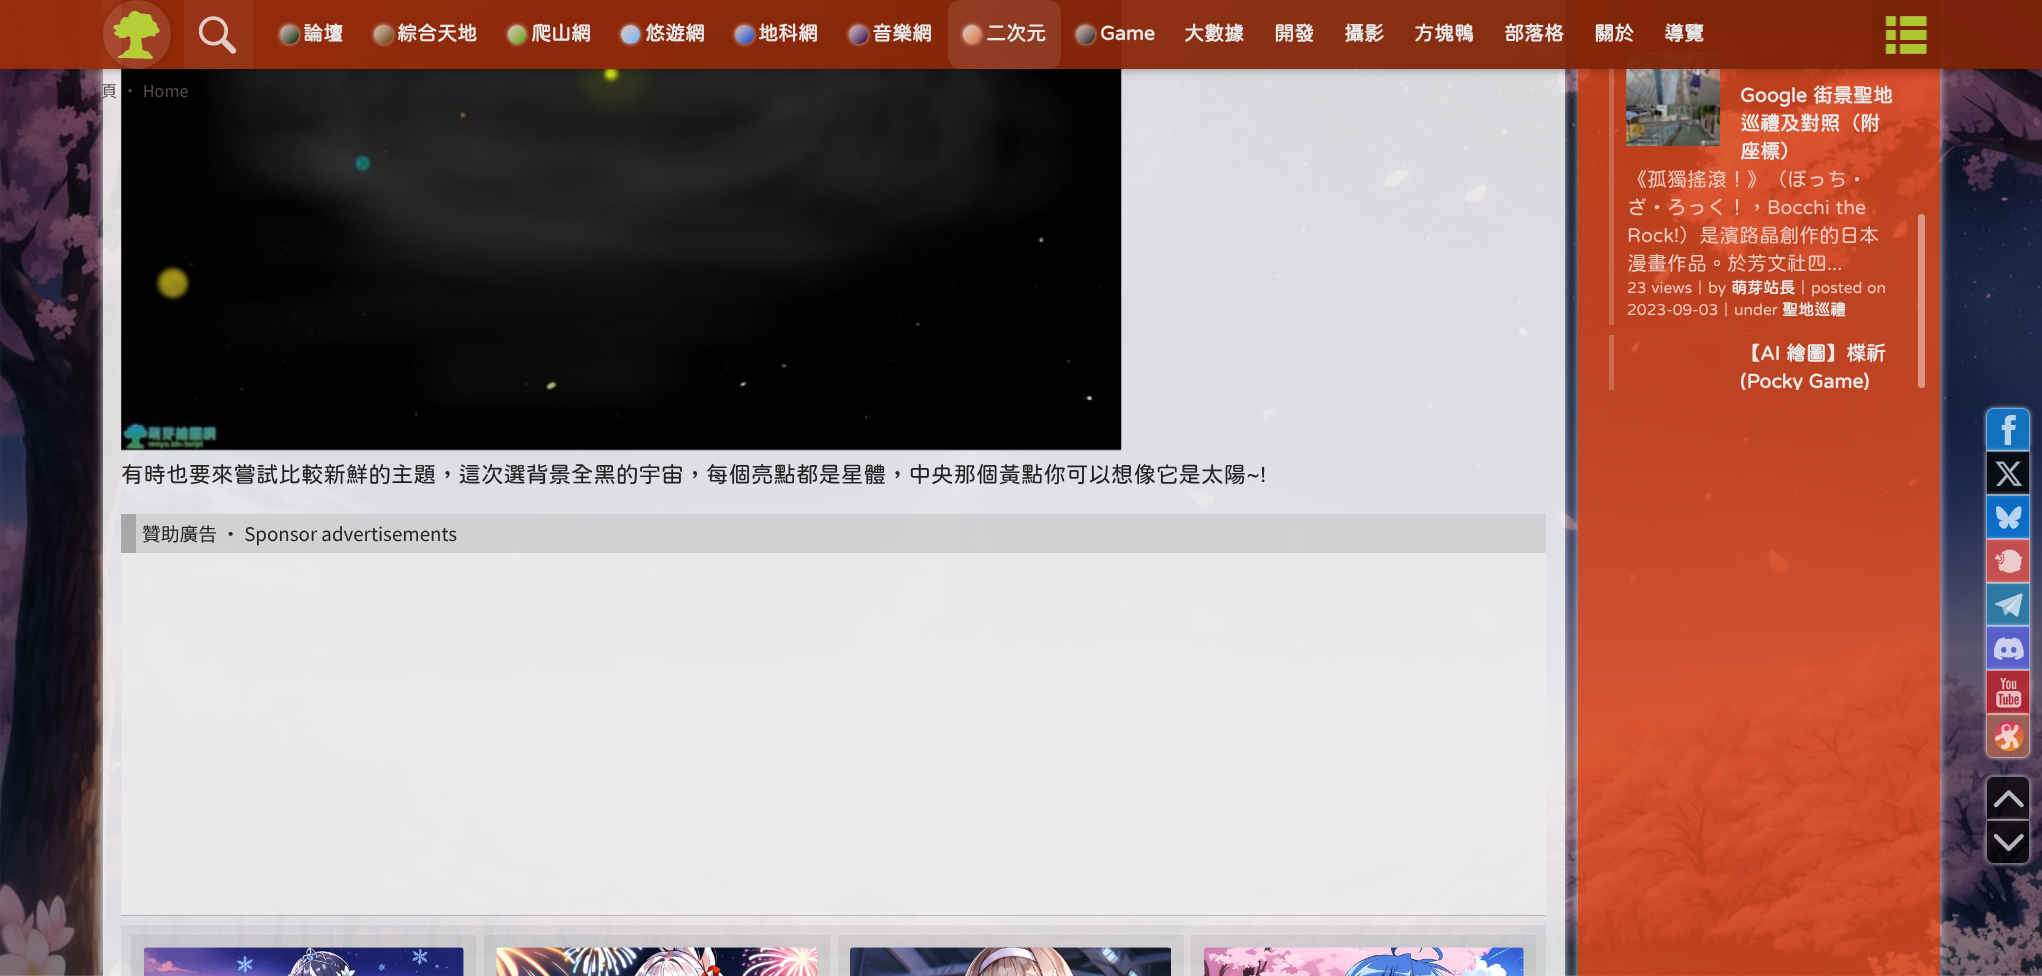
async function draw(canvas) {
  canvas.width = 2042;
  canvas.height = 976;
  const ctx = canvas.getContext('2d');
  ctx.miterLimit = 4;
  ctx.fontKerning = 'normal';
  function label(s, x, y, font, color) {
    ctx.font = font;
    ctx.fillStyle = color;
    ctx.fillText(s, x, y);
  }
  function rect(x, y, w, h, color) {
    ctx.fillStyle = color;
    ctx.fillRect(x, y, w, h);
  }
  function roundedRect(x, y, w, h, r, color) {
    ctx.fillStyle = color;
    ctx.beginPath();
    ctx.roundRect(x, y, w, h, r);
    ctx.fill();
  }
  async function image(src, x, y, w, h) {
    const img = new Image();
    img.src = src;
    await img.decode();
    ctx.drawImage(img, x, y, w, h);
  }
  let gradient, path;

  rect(0, 0, 2042, 976, '#fff');
  await image('assets/img1.png', 0, 0, 2042, 976);
  ctx.save();
  path = new Path2D('M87 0H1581V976H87ZM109-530H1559C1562.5-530 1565-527.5 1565-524V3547C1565 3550.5 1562.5 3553 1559 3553H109C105.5 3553 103 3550.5 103 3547V-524C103-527.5 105.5-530 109-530Z');
  ctx.clip(path, 'evenodd');
  ctx.fillStyle = '#ffffffcc';
  ctx.filter = 'blur(5px)';
  ctx.beginPath();
  ctx.roundRect(103, -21, 1462, 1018, 6);
  ctx.fill();
  ctx.filter = 'none';
  ctx.restore();
  rect(103, 0, 1462, 976, '#ffffffd9');
  ctx.save();
  path = new Path2D('M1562 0H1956V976H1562ZM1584-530H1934C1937.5-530 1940-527.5 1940-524V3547C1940 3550.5 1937.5 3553 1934 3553H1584C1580.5 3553 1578 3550.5 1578 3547V-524C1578-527.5 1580.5-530 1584-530Z');
  ctx.clip(path, 'evenodd');
  ctx.fillStyle = '#ffffffcc';
  ctx.filter = 'blur(5px)';
  ctx.beginPath();
  ctx.roundRect(1578, -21, 362, 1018, 6);
  ctx.fill();
  ctx.filter = 'none';
  ctx.restore();
  rect(1578, 0, 362, 976, '#f9511cbf');
  roundedRect(1609, -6, 292, 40, 6, '#0000004d');
  rect(1609, 0, 15, 31, '#00000033');
  rect(1609, 49, 5, 276, '#ffffff33');
  await image('assets/img5.png', 1626, 52, 94, 94);
  ctx.fillStyle = '#00000033';
  ctx.filter = 'blur(0.5px)';
  ctx.beginPath();
  ctx.rect(121, -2, 1000, 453);
  ctx.fill();
  ctx.filter = 'none';
  await image('assets/img6.png', 121, 0, 1001, 450);
  ctx.save();
  path = new Path2D('M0 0H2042V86H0ZM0 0H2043V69H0Z');
  ctx.clip(path, 'evenodd');
  ctx.fillStyle = '#0000004d';
  ctx.filter = 'blur(5px)';
  ctx.beginPath();
  ctx.rect(0, 1, 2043, 69);
  ctx.fill();
  ctx.filter = 'none';
  ctx.restore();
  gradient = ctx.createLinearGradient(493, -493, 1549, 562);
  gradient.addColorStop(0, '#9d2d0bf2');
  gradient.addColorStop(0.85, '#7e2307f2');
  ctx.fillStyle = gradient;
  ctx.fillRect(0, 0, 2042, 69);
  rect(184, 0, 69, 69, '#ffffff0d');
  await image('assets/img2.png', 199, 16, 37, 38);
  ctx.save();
  path = new Path2D('M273 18H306V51H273ZM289.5 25C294.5 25 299 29.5 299 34.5C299 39.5 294.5 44 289.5 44C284.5 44 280 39.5 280 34.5C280 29.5 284.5 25 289.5 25Z');
  ctx.clip(path, 'evenodd');
  ctx.fillStyle = '#ffffffcc';
  ctx.filter = 'blur(2px)';
  ctx.beginPath();
  ctx.roundRect(280, 25, 19, 19, 9.5);
  ctx.fill();
  ctx.filter = 'none';
  ctx.restore();
  gradient = ctx.createLinearGradient(280, 25, 299, 44);
  gradient.addColorStop(0, '#ffffffb3');
  gradient.addColorStop(0.95, '#001f00');
  ctx.fillStyle = gradient;
  ctx.beginPath();
  ctx.arc(289.5, 34.5, 9.5, 0, 2 * Math.PI);
  ctx.fill();
  label('論壇', 303, 40, 'bold 20px "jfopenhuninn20"', '#e7e7e7');
  ctx.save();
  path = new Path2D('M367 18H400V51H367ZM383.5 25C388.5 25 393 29.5 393 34.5C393 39.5 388.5 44 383.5 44C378.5 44 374 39.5 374 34.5C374 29.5 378.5 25 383.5 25Z');
  ctx.clip(path, 'evenodd');
  ctx.fillStyle = '#ffffffcc';
  ctx.filter = 'blur(2px)';
  ctx.beginPath();
  ctx.roundRect(374, 25, 19, 19, 9.5);
  ctx.fill();
  ctx.filter = 'none';
  ctx.restore();
  gradient = ctx.createLinearGradient(374, 25, 393, 44);
  gradient.addColorStop(0, '#ffffffb3');
  gradient.addColorStop(0.95, '#5f3500');
  ctx.fillStyle = gradient;
  ctx.beginPath();
  ctx.arc(383.5, 34.5, 9.5, 0, 2 * Math.PI);
  ctx.fill();
  label('綜合天地', 397, 40, 'bold 20px "jfopenhuninn20"', '#e7e7e7');
  ctx.save();
  path = new Path2D('M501 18H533V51H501ZM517 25C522 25 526 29 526 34V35C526 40 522 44 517 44C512 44 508 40 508 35V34C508 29 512 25 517 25Z');
  ctx.clip(path, 'evenodd');
  ctx.fillStyle = '#ffffffcc';
  ctx.filter = 'blur(2px)';
  ctx.beginPath();
  ctx.roundRect(508, 25, 18, 19, 9);
  ctx.fill();
  ctx.filter = 'none';
  ctx.restore();
  gradient = ctx.createLinearGradient(508, 25, 526, 44);
  gradient.addColorStop(0, '#ffffffb3');
  gradient.addColorStop(0.95, '#5da107');
  ctx.fillStyle = gradient;
  ctx.beginPath();
  ctx.roundRect(508, 25, 18, 19, 9);
  ctx.fill();
  label('爬山網', 531, 40, 'bold 20px "jfopenhuninn20"', '#e7e7e7');
  ctx.save();
  path = new Path2D('M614 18H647V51H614ZM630.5 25C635.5 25 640 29.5 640 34.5C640 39.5 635.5 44 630.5 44C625.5 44 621 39.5 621 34.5C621 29.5 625.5 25 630.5 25Z');
  ctx.clip(path, 'evenodd');
  ctx.fillStyle = '#ffffffcc';
  ctx.filter = 'blur(2px)';
  ctx.beginPath();
  ctx.roundRect(621, 25, 19, 19, 9.5);
  ctx.fill();
  ctx.filter = 'none';
  ctx.restore();
  gradient = ctx.createLinearGradient(621, 25, 640, 44);
  gradient.addColorStop(0, '#ffffffb3');
  gradient.addColorStop(0.95, '#6db4ff');
  ctx.fillStyle = gradient;
  ctx.beginPath();
  ctx.arc(630.5, 34.5, 9.5, 0, 2 * Math.PI);
  ctx.fill();
  label('悠遊網', 645, 40, 'bold 20px "jfopenhuninn20"', '#e7e7e7');
  ctx.save();
  path = new Path2D('M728 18H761V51H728ZM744.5 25C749.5 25 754 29.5 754 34.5C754 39.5 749.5 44 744.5 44C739.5 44 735 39.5 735 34.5C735 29.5 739.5 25 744.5 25Z');
  ctx.clip(path, 'evenodd');
  ctx.fillStyle = '#ffffffcc';
  ctx.filter = 'blur(2px)';
  ctx.beginPath();
  ctx.roundRect(735, 25, 19, 19, 9.5);
  ctx.fill();
  ctx.filter = 'none';
  ctx.restore();
  gradient = ctx.createLinearGradient(735, 25, 754, 44);
  gradient.addColorStop(0, '#ffffffb3');
  gradient.addColorStop(0.95, '#0240d4');
  ctx.fillStyle = gradient;
  ctx.beginPath();
  ctx.arc(744.5, 34.5, 9.5, 0, 2 * Math.PI);
  ctx.fill();
  label('地科網', 758, 40, 'bold 20px "jfopenhuninn20"', '#e7e7e7');
  ctx.save();
  path = new Path2D('M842 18H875V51H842ZM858.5 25C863.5 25 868 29.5 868 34.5C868 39.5 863.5 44 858.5 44C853.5 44 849 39.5 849 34.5C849 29.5 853.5 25 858.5 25Z');
  ctx.clip(path, 'evenodd');
  ctx.fillStyle = '#ffffffcc';
  ctx.filter = 'blur(2px)';
  ctx.beginPath();
  ctx.roundRect(849, 25, 19, 19, 9.5);
  ctx.fill();
  ctx.filter = 'none';
  ctx.restore();
  gradient = ctx.createLinearGradient(849, 25, 868, 44);
  gradient.addColorStop(0, '#ffffffb3');
  gradient.addColorStop(0.95, '#220046');
  ctx.fillStyle = gradient;
  ctx.beginPath();
  ctx.arc(858.5, 34.5, 9.5, 0, 2 * Math.PI);
  ctx.fill();
  label('音樂網', 872, 40, 'bold 20px "jfopenhuninn20"', '#e7e7e7');
  roundedRect(948, 0, 113, 69, 13, '#ffffff1a');
  ctx.save();
  path = new Path2D('M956 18H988V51H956ZM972 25C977 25 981 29 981 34V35C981 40 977 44 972 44C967 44 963 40 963 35V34C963 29 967 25 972 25Z');
  ctx.clip(path, 'evenodd');
  ctx.fillStyle = '#ffffffcc';
  ctx.filter = 'blur(2px)';
  ctx.beginPath();
  ctx.roundRect(963, 25, 18, 19, 9);
  ctx.fill();
  ctx.filter = 'none';
  ctx.restore();
  gradient = ctx.createLinearGradient(963, 25, 981, 44);
  gradient.addColorStop(0, '#ffffffb3');
  gradient.addColorStop(0.95, '#da6d3b');
  ctx.fillStyle = gradient;
  ctx.beginPath();
  ctx.roundRect(963, 25, 18, 19, 9);
  ctx.fill();
  label('二次元', 986, 40, 'bold 20px "jfopenhuninn20"', '#e7e7e7');
  ctx.save();
  path = new Path2D('M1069 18H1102V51H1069ZM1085.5 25C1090.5 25 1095 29.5 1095 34.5C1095 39.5 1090.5 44 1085.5 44C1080.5 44 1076 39.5 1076 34.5C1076 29.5 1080.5 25 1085.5 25Z');
  ctx.clip(path, 'evenodd');
  ctx.fillStyle = '#ffffffcc';
  ctx.filter = 'blur(2px)';
  ctx.beginPath();
  ctx.roundRect(1076, 25, 19, 19, 9.5);
  ctx.fill();
  ctx.filter = 'none';
  ctx.restore();
  gradient = ctx.createLinearGradient(1076, 25, 1095, 44);
  gradient.addColorStop(0, '#ffffffb3');
  gradient.addColorStop(0.95, '#191919');
  ctx.fillStyle = gradient;
  ctx.beginPath();
  ctx.arc(1085.5, 34.5, 9.5, 0, 2 * Math.PI);
  ctx.fill();
  label('Game', 1100, 40, 'bold 20px "jfopenhuninn20"', '#e7e7e7');
  label('大數據', 1184, 40, 'bold 20px "jfopenhuninn20"', '#e7e7e7');
  label('開發', 1274, 40, 'bold 20px "jfopenhuninn20"', '#e7e7e7');
  label('攝影', 1344, 40, 'bold 20px "jfopenhuninn20"', '#e7e7e7');
  label('方塊鴨', 1414, 40, 'bold 20px "jfopenhuninn20"', '#e7e7e7');
  label('部落格', 1504, 40, 'bold 20px "jfopenhuninn20"', '#e7e7e7');
  label('關於', 1594, 40, 'bold 20px "jfopenhuninn20"', '#e7e7e7');
  label('導覽', 1664, 40, 'bold 20px "jfopenhuninn20"', '#e7e7e7');
  rect(1871, 0, 69, 69, '#0000000d');
  await image('assets/img3.png', 1885, 16, 43, 38);
  ctx.save();
  path = new Path2D('M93 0H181V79H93ZM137 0C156 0 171 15 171 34V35C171 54 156 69 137 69C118 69 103 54 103 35V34C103 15 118 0 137 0Z');
  ctx.clip(path, 'evenodd');
  ctx.fillStyle = '#00000033';
  ctx.filter = 'blur(3px)';
  ctx.beginPath();
  ctx.roundRect(103, 0, 68, 69, 34);
  ctx.fill();
  ctx.filter = 'none';
  ctx.restore();
  roundedRect(103, 0, 68, 69, 34, '#ffffff1a');
  await image('assets/img4.png', 113, 10, 48, 49);
  ctx.wordSpacing = '1px';
  label('頁 ‧ Home', 101, 97, '16.25px Noto Sans CJK TC', '#564b51');
  ctx.wordSpacing = '0px';
  label('Google 街景聖地', 1740, 102, 'bold 20px "jfopenhuninn20"', '#e7e7e7');
  label('巡禮及對照（附', 1740, 130, 'bold 20px "jfopenhuninn20"', '#e7e7e7');
  label('座標）', 1740, 158, 'bold 20px "jfopenhuninn20"', '#e7e7e7');
  label('《孤獨搖滾！》（ぼっち・', 1627, 186, '20px "jfopenhuninn20"', '#f0c9be');
  label('ざ・ろっく！，Bocchi the', 1627, 214, '20px "jfopenhuninn20"', '#f0c9be');
  label('Rock!）是濱路晶創作的日本', 1627, 242, '20px "jfopenhuninn20"', '#f0c9be');
  label('漫畫作品。於芳文社四...', 1627, 270, '20px "jfopenhuninn20"', '#f0c9be');
  label('23 views', 1627, 293, '16px "jfopenhuninn20"', '#f0c9be');
  label('｜', 1692, 293, '16px "jfopenhuninn20"', '#f0c9be');
  label('by', 1708, 293, '16px "jfopenhuninn20"', '#f0c9be');
  label('萌芽站長', 1731, 293, 'bold 16px "jfopenhuninn20"', '#e7e7e7');
  label('｜', 1795, 293, '16px "jfopenhuninn20"', '#f0c9be');
  label('posted on', 1811, 293, '16px "jfopenhuninn20"', '#f0c9be');
  label('2023-09-03', 1627, 315, '16px "jfopenhuninn20"', '#f0c9be');
  label('｜under', 1718, 315, '16px "jfopenhuninn20"', '#f0c9be');
  label('聖地巡禮', 1782, 315, 'bold 16px "jfopenhuninn20"', '#e7e7e7');
  rect(1609, 335, 5, 55, '#ffffff33');
  label('【AI 繪圖】楪祈', 1740, 360, 'bold 20px "jfopenhuninn20"', '#e7e7e7');
  ctx.save();
  ctx.beginPath();
  ctx.rect(1614, 335, 287, 55);
  ctx.clip();
  label('(Pocky Game)', 1740, 388, 'bold 20px "jfopenhuninn20"', '#e7e7e7');
  ctx.restore();
  roundedRect(1918, 214, 7, 174, 3.5, '#ffffff70');
  label('有時也要來嘗試比較新鮮的主題，這次選背景全黑的宇宙，每個亮點都是星體，中央那個黃點你可以想像它是太陽~!', 121, 482, '22.5px "jfopenhuninn20"', '#232323');
  ctx.save();
  path = new Path2D('M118 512H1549V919H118ZM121 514H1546V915H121Z');
  ctx.clip(path, 'evenodd');
  ctx.fillStyle = '#00000033';
  ctx.filter = 'blur(0.5px)';
  ctx.beginPath();
  ctx.rect(121, 515, 1425, 401);
  ctx.fill();
  ctx.filter = 'none';
  ctx.restore();
  rect(121, 514, 1425, 401, '#ecececb3');
  rect(121, 514, 1425, 39, '#0000001a');
  rect(121, 514, 15, 39, '#00000033');
  label('贊助廣告 ‧ Sponsor advertisements', 142, 541, '18.75px Noto Sans CJK TC', '#232323');
  rect(121, 925, 1425, 51, '#0000000d');
  rect(131, 935, 345, 41, '#0000000d');
  await image('assets/img7.png', 144, 947, 320, 29);
  rect(484, 935, 346, 41, '#0000000d');
  await image('assets/img8.png', 496, 947, 322, 29);
  rect(838, 935, 346, 41, '#0000000d');
  await image('assets/img9.png', 850, 947, 321, 29);
  rect(1191, 935, 345, 41, '#0000000d');
  await image('assets/img10.png', 1204, 947, 320, 29);
  ctx.save();
  path = new Path2D('M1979 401H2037V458H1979ZM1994 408H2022C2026.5 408 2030 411.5 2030 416V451H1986V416C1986 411.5 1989.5 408 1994 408Z');
  ctx.clip(path, 'evenodd');
  ctx.fillStyle = '#ffffffb3';
  ctx.filter = 'blur(2px)';
  ctx.beginPath();
  ctx.roundRect(1986, 408, 44, 43, 8);
  ctx.fill();
  ctx.filter = 'none';
  ctx.restore();
  ctx.fillStyle = '#1093f4b3';
  ctx.beginPath();
  ctx.roundRect(1986, 408, 44, 43, [8, 8, 0, 0]);
  ctx.fill();
  await image('assets/img11.png', 2001, 415, 15, 30);
  ctx.beginPath();
  ctx.roundRect(1986.5, 408.5, 43, 42, [7.5, 7.5, 0, 0]);
  ctx.strokeStyle = '#ffffff6b';
  ctx.stroke();
  ctx.save();
  path = new Path2D('M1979 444H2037V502H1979ZM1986 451H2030V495H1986Z');
  ctx.clip(path, 'evenodd');
  ctx.fillStyle = '#ffffffb3';
  ctx.filter = 'blur(2px)';
  ctx.beginPath();
  ctx.rect(1986, 451, 44, 44);
  ctx.fill();
  ctx.filter = 'none';
  ctx.restore();
  rect(1986, 451, 44, 44, '#000000b3');
  await image('assets/img12.png', 1995, 461, 28, 25);
  ctx.strokeRect(1986.5, 451.5, 43, 43);
  ctx.save();
  path = new Path2D('M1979 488H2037V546H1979ZM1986 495H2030V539H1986Z');
  ctx.clip(path, 'evenodd');
  ctx.fillStyle = '#ffffffb3';
  ctx.filter = 'blur(2px)';
  ctx.beginPath();
  ctx.rect(1986, 495, 44, 44);
  ctx.fill();
  ctx.filter = 'none';
  ctx.restore();
  rect(1986, 495, 44, 44, '#0085f7b3');
  await image('assets/img13.png', 1996, 506, 26, 23);
  ctx.strokeRect(1986.5, 495.5, 43, 43);
  ctx.save();
  path = new Path2D('M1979 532H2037V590H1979ZM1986 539H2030V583H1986Z');
  ctx.clip(path, 'evenodd');
  ctx.fillStyle = '#ffffffb3';
  ctx.filter = 'blur(2px)';
  ctx.beginPath();
  ctx.rect(1986, 539, 44, 44);
  ctx.fill();
  ctx.filter = 'none';
  ctx.restore();
  rect(1986, 539, 44, 44, '#ff574db3');
  await image('assets/img14.png', 1995, 549, 28, 24);
  ctx.strokeRect(1986.5, 539.5, 43, 43);
  ctx.save();
  path = new Path2D('M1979 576H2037V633H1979ZM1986 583H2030V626H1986Z');
  ctx.clip(path, 'evenodd');
  ctx.fillStyle = '#ffffffb3';
  ctx.filter = 'blur(2px)';
  ctx.beginPath();
  ctx.rect(1986, 583, 44, 43);
  ctx.fill();
  ctx.filter = 'none';
  ctx.restore();
  rect(1986, 583, 44, 43, '#238fbeb3');
  await image('assets/img15.png', 1995, 593, 28, 24);
  ctx.strokeRect(1986.5, 583.5, 43, 42);
  ctx.save();
  path = new Path2D('M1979 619H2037V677H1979ZM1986 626H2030V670H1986Z');
  ctx.clip(path, 'evenodd');
  ctx.fillStyle = '#ffffffb3';
  ctx.filter = 'blur(2px)';
  ctx.beginPath();
  ctx.rect(1986, 626, 44, 44);
  ctx.fill();
  ctx.filter = 'none';
  ctx.restore();
  rect(1986, 626, 44, 44, '#5865f2b3');
  await image('assets/img16.png', 1994, 637, 30, 23);
  ctx.strokeRect(1986.5, 626.5, 43, 43);
  ctx.save();
  path = new Path2D('M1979 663H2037V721H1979ZM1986 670H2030V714H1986Z');
  ctx.clip(path, 'evenodd');
  ctx.fillStyle = '#ffffffb3';
  ctx.filter = 'blur(2px)';
  ctx.beginPath();
  ctx.rect(1986, 670, 44, 44);
  ctx.fill();
  ctx.filter = 'none';
  ctx.restore();
  rect(1986, 670, 44, 44, '#cc181eb3');
  await image('assets/img17.png', 1996, 678, 26, 30);
  ctx.strokeRect(1986.5, 670.5, 43, 43);
  ctx.save();
  path = new Path2D('M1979 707H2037V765H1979ZM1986 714H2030V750C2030 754.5 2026.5 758 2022 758H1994C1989.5 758 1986 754.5 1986 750Z');
  ctx.clip(path, 'evenodd');
  ctx.fillStyle = '#ffffffb3';
  ctx.filter = 'blur(2px)';
  ctx.beginPath();
  ctx.roundRect(1986, 714, 44, 44, 8);
  ctx.fill();
  ctx.filter = 'none';
  ctx.restore();
  ctx.fillStyle = '#bd6c54b3';
  ctx.beginPath();
  ctx.roundRect(1986, 714, 44, 44, [0, 0, 8, 8]);
  ctx.fill();
  await image('assets/img18.png', 1994, 721, 30, 30);
  ctx.beginPath();
  ctx.roundRect(1986.5, 714.5, 43, 43, [0, 0, 7.5, 7.5]);
  ctx.stroke();
  ctx.save();
  path = new Path2D('M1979 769H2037V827H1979ZM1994 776H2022C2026.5 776 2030 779.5 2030 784V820H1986V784C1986 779.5 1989.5 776 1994 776Z');
  ctx.clip(path, 'evenodd');
  ctx.fillStyle = '#ffffffb3';
  ctx.filter = 'blur(2px)';
  ctx.beginPath();
  ctx.roundRect(1986, 776, 44, 44, 8);
  ctx.fill();
  ctx.filter = 'none';
  ctx.restore();
  ctx.fillStyle = '#000000b3';
  ctx.beginPath();
  ctx.roundRect(1986, 776, 44, 44, [8, 8, 0, 0]);
  ctx.fill();
  await image('assets/img19.png', 1994, 790, 30, 18);
  ctx.beginPath();
  ctx.roundRect(1986.5, 776.5, 43, 43, [7.5, 7.5, 0, 0]);
  ctx.stroke();
  ctx.save();
  path = new Path2D('M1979 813H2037V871H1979ZM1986 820H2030V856C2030 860.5 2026.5 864 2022 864H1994C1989.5 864 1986 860.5 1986 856Z');
  ctx.clip(path, 'evenodd');
  ctx.fillStyle = '#ffffffb3';
  ctx.filter = 'blur(2px)';
  ctx.beginPath();
  ctx.roundRect(1986, 820, 44, 44, 8);
  ctx.fill();
  ctx.filter = 'none';
  ctx.restore();
  ctx.beginPath();
  ctx.roundRect(1986, 820, 44, 44, [0, 0, 8, 8]);
  ctx.fill();
  await image('assets/img20.png', 1994, 834, 30, 17);
  ctx.beginPath();
  ctx.roundRect(1986.5, 820.5, 43, 43, [0, 0, 7.5, 7.5]);
  ctx.stroke();
}

draw(document.querySelector('canvas'));
